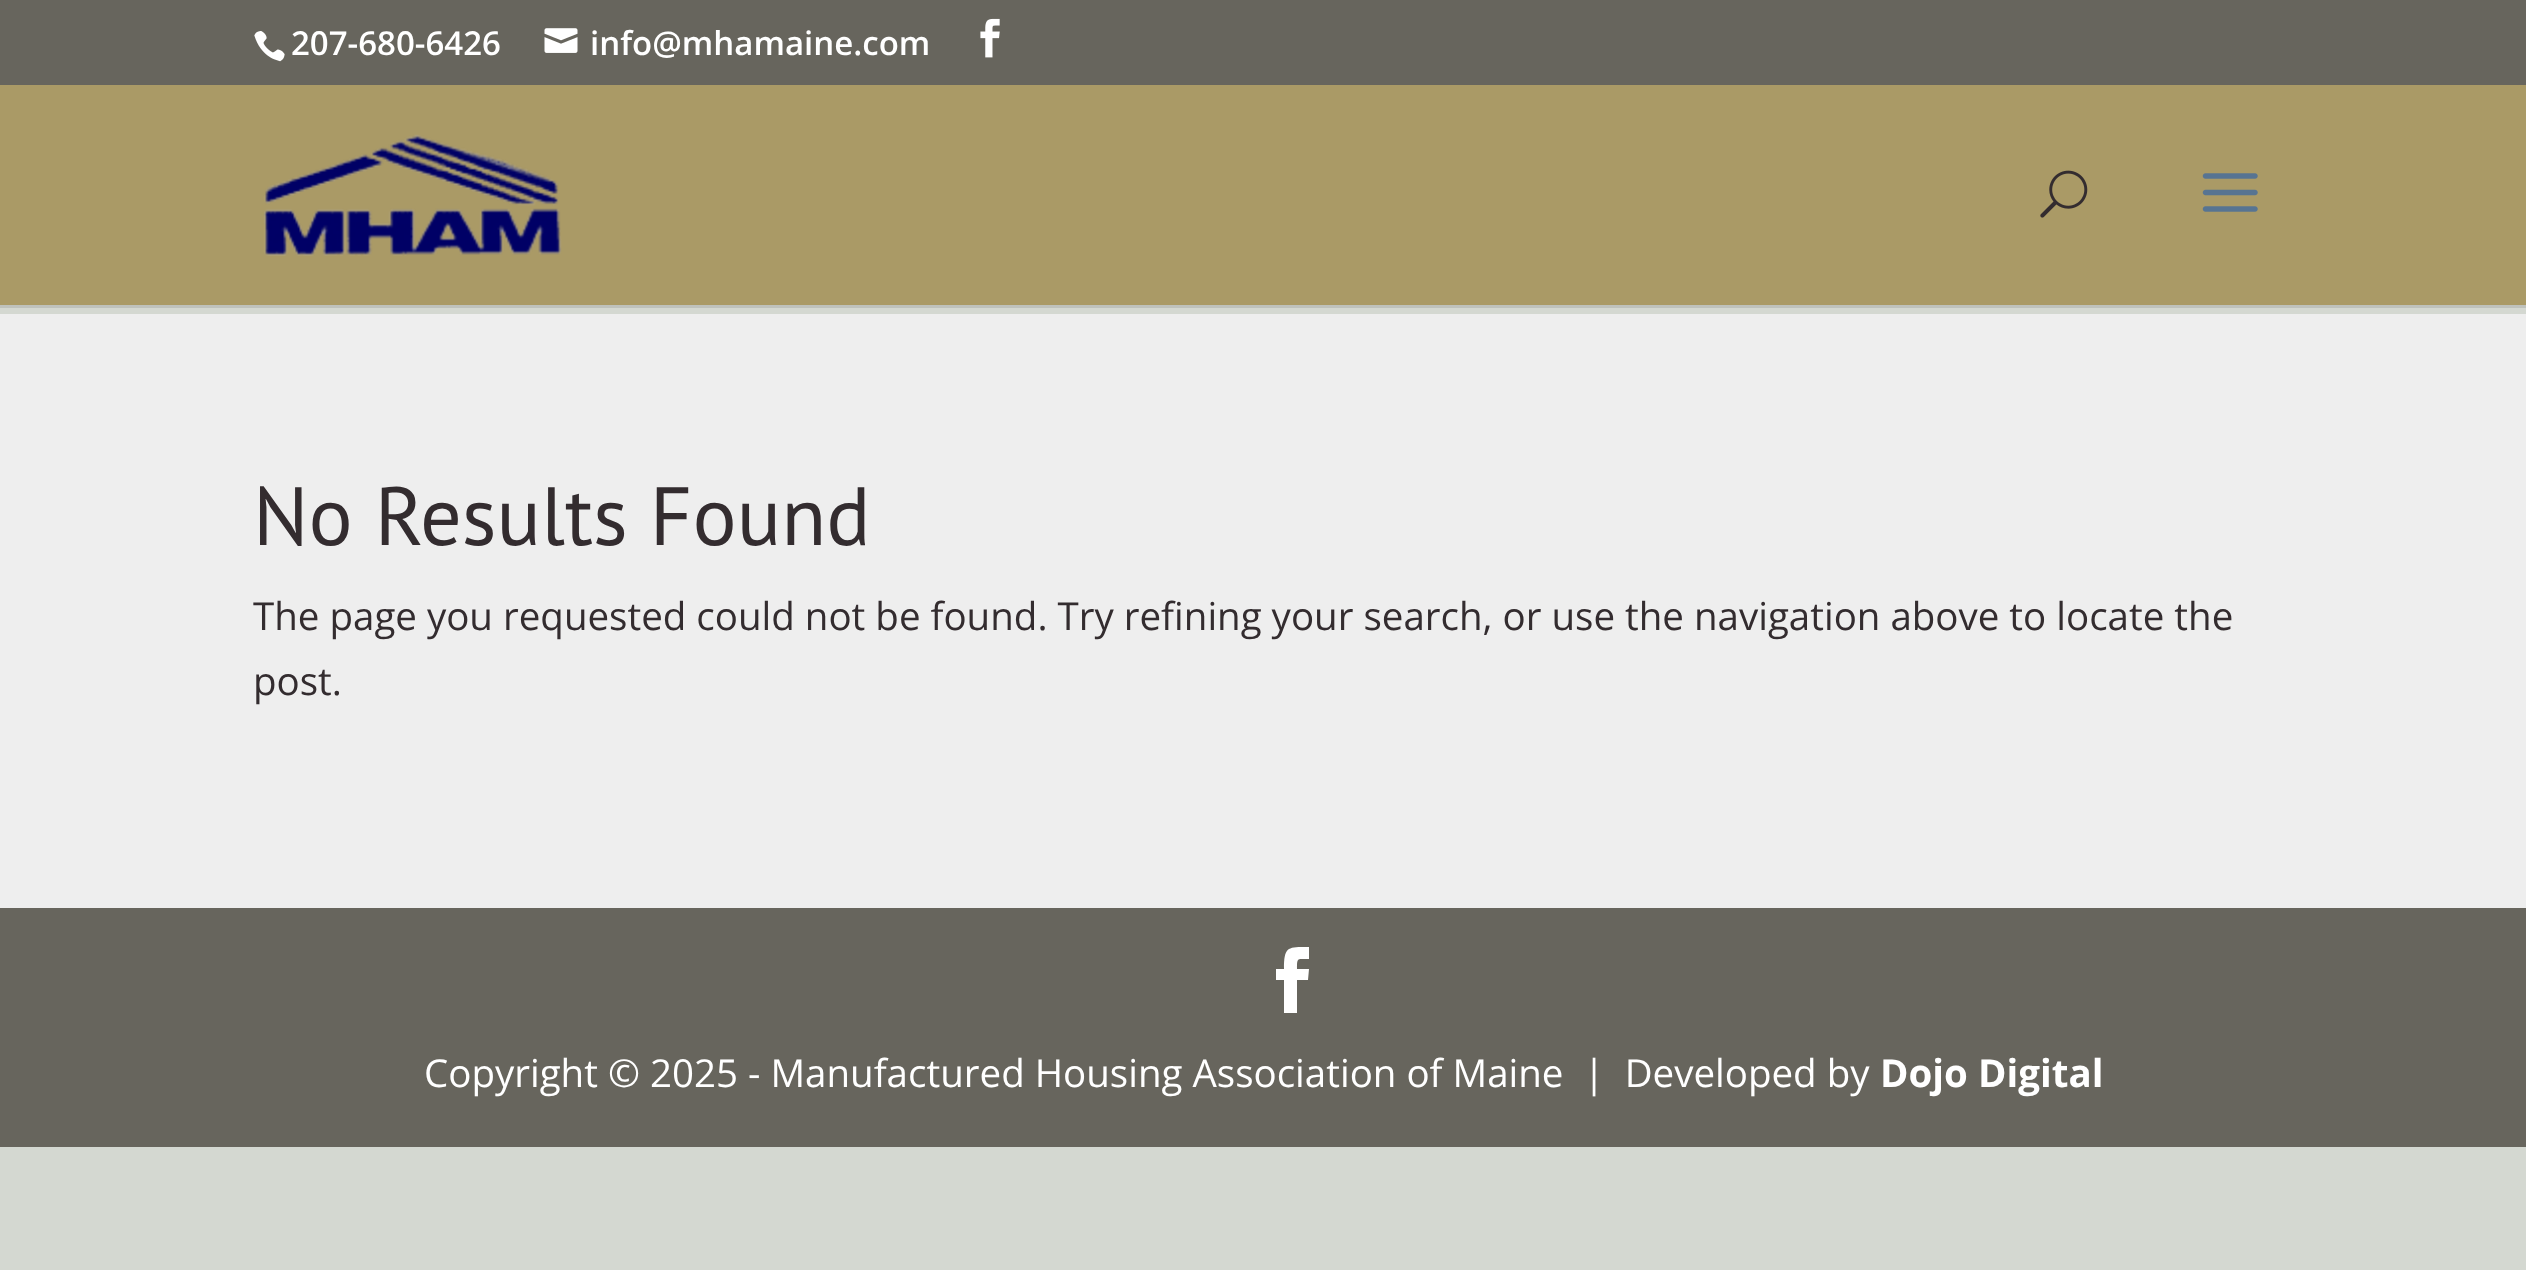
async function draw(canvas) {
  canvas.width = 2526;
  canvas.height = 1270;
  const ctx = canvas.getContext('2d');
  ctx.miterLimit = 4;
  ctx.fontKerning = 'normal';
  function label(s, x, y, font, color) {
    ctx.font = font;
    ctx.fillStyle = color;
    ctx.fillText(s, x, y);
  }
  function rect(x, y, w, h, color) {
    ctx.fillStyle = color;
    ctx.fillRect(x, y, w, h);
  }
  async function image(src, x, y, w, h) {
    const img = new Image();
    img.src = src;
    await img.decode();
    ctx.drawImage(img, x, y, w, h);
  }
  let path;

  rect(0, 0, 2526, 1270, '#d4d8d1');
  rect(0, 0, 2526, 85, '#67655d');
  await image('assets/img1.png', 254, 31, 31, 31);
  label('207-680-6426', 291, 55, '600 33px Open Sans', '#fff');
  await image('assets/img2.png', 544, 28, 34, 25);
  label('info@mhamaine.com', 590, 55, '600 33px Open Sans', '#fff');
  await image('assets/img3.png', 980, 18, 20, 40);
  rect(0, 305, 2526, 3, '#bfc2bc');
  rect(0, 85, 2526, 220, '#aa9a66');
  await image('assets/img4.png', 263, 134, 299, 122);
  await image('assets/img5.png', 2040, 170, 48, 48);
  await image('assets/img6.png', 2202, 173, 56, 39);
  rect(0, 314, 2526, 594, '#eee');
  label('No Results Found', 253, 545, '82.5px PT Sans', '#332c2f');
  label('The page you requested could not be found. Try refining your search, or use the navigation above to locate the', 253, 630, '38.5px Open Sans', '#332c2f');
  label('post.', 253, 695, '38.5px Open Sans', '#332c2f');
  rect(0, 908, 2526, 239, '#67655d');
  ctx.fillStyle = '#fff';
  path = new Path2D('M1284 1013H1297V980H1308L1309 969H1297C1297 957 1297 959 1309 959V947C1288 947 1284 946 1284 969H1276V980H1284Z');
  ctx.fill(path);
  label('Copyright © 2025 - Manufactured Housing Association of Maine  |  Developed by', 424, 1087, '38.5px Open Sans', '#fff');
  label('Dojo Digital', 1880, 1087, 'bold 38.5px Open Sans', '#fff');
}

draw(document.querySelector('canvas'));
